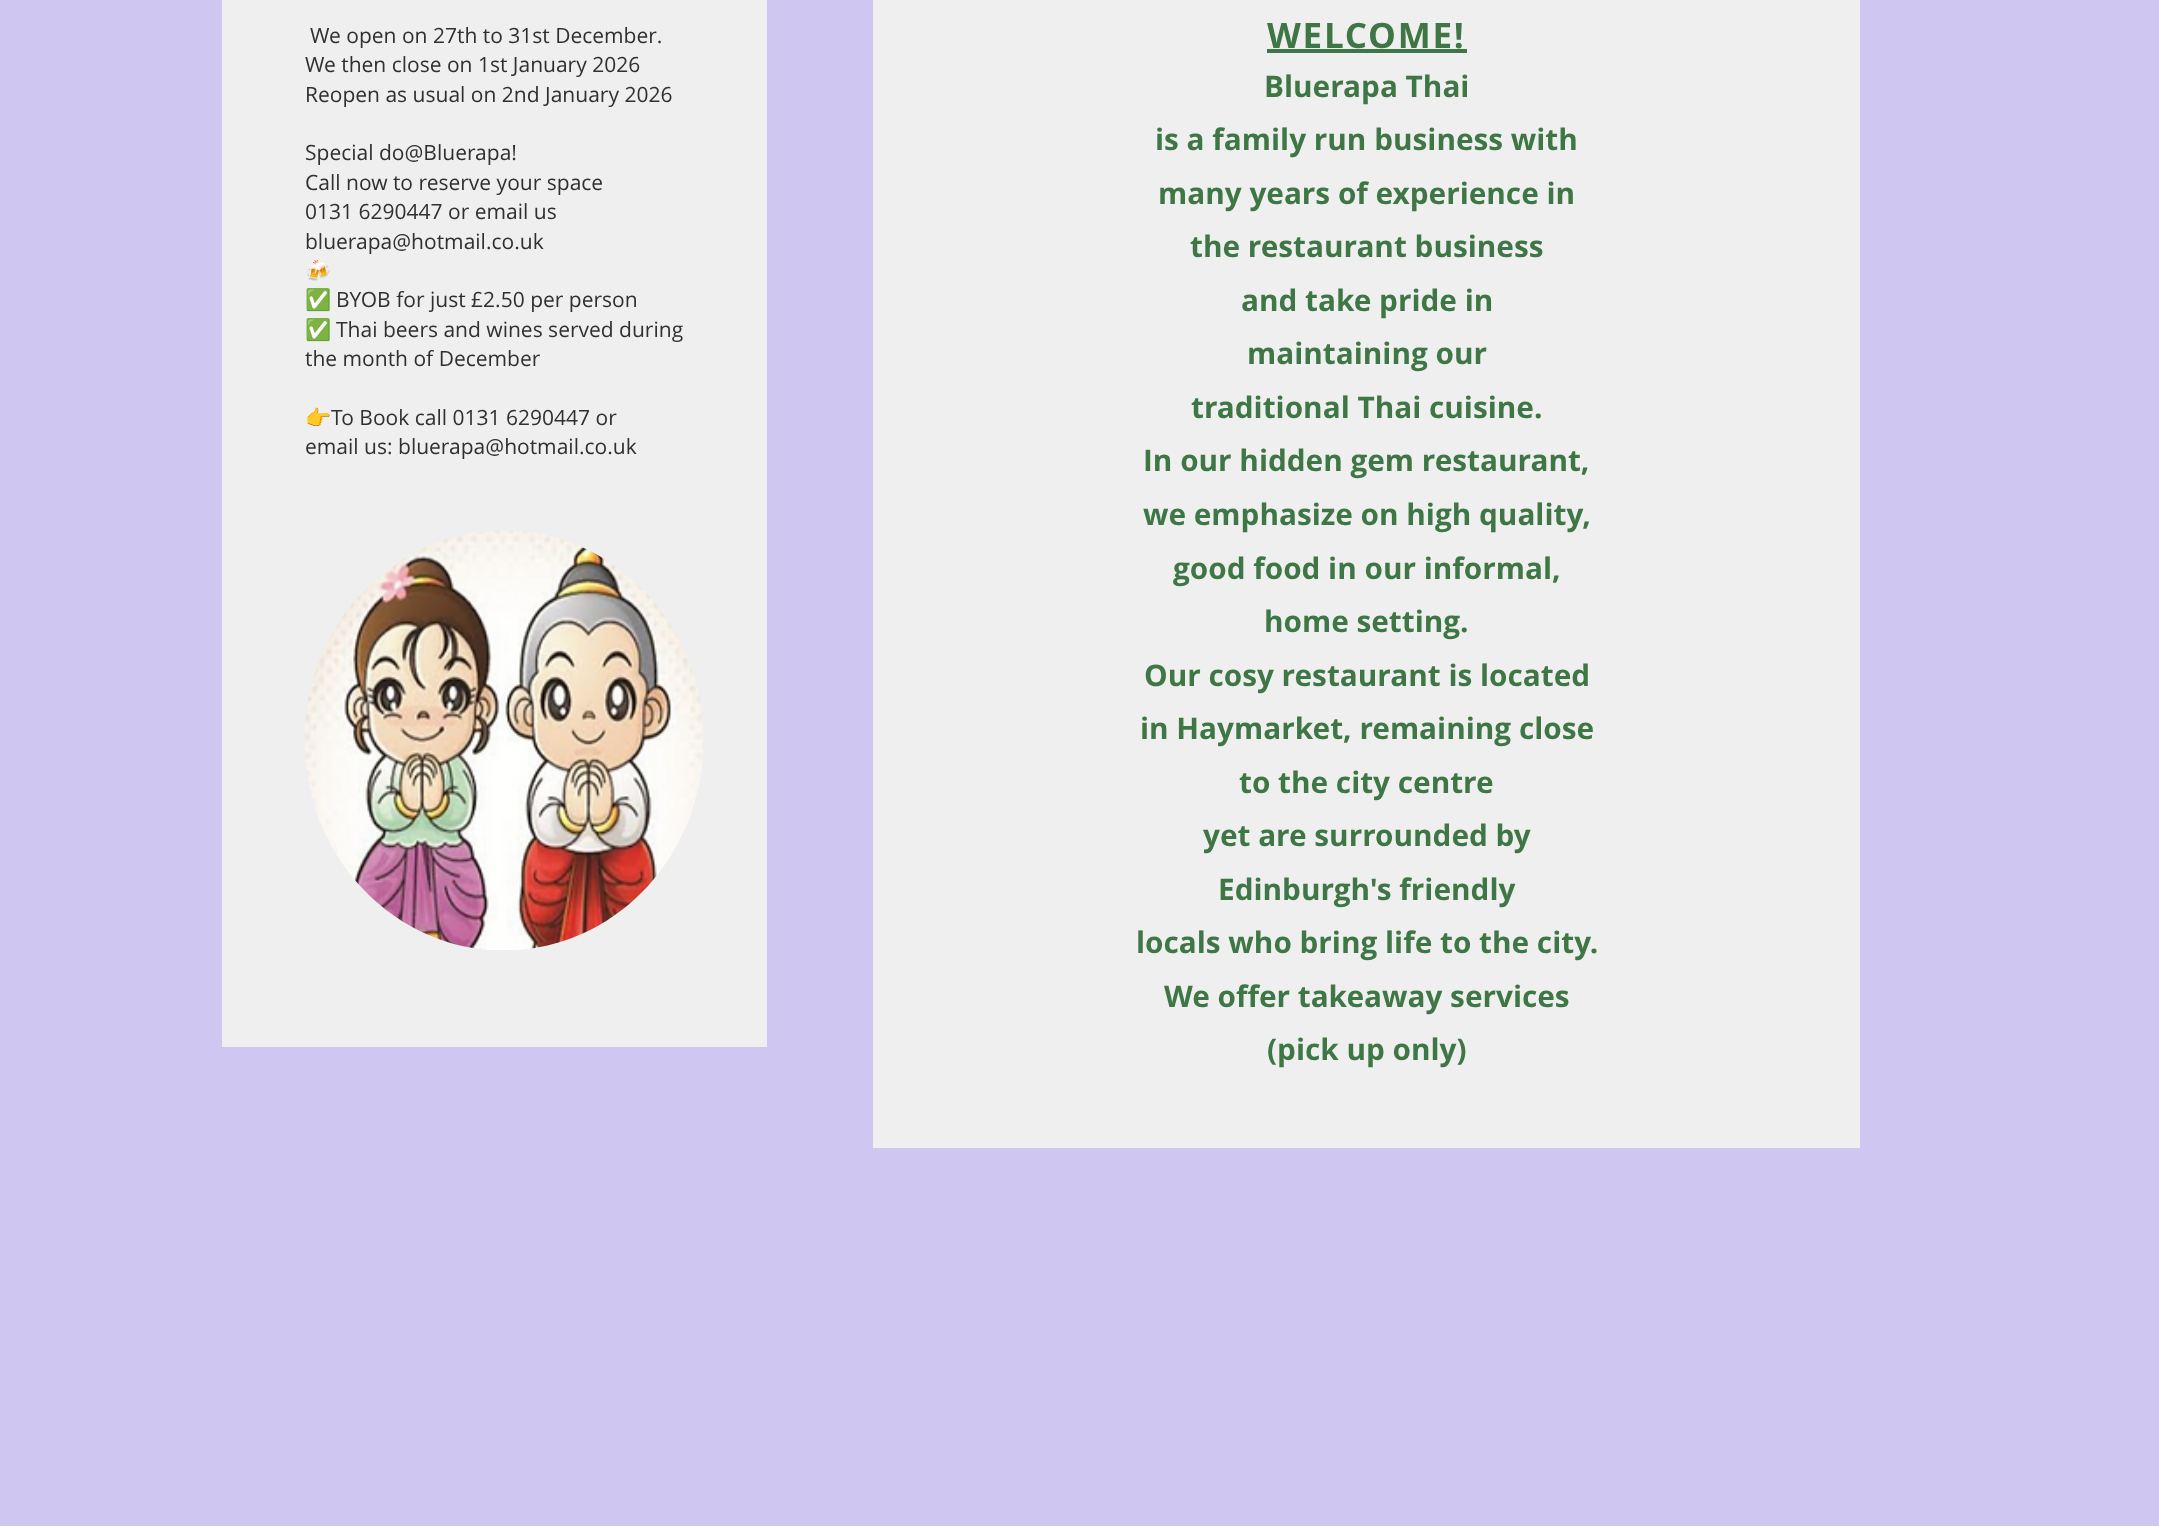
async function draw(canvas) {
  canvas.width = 2159;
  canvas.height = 1526;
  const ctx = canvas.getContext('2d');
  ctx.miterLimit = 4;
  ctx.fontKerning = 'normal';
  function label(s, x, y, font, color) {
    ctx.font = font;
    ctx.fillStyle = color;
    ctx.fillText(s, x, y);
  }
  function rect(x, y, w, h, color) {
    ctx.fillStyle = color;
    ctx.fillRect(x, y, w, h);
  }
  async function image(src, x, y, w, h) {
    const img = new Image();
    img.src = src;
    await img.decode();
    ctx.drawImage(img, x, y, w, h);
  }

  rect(0, 0, 2159, 1526, '#cfc7f2');
  rect(222, 0, 545, 1047, '#efefef');
  label('We open on 27th to 31st December.', 310, 43, '21px Open Sans', '#303030');
  label('We then close on 1st January 2026', 305, 72, '21px Open Sans', '#303030');
  label('Reopen as usual on 2nd January 2026', 305, 102, '21px Open Sans', '#303030');
  label('Special do@Bluerapa!', 305, 160, '21px Open Sans', '#303030');
  label('Call now to reserve your space', 305, 190, '21px Open Sans', '#303030');
  label('0131 6290447 or email us', 305, 219, '21px Open Sans', '#303030');
  label('bluerapa@hotmail.co.uk', 305, 249, '21px Open Sans', '#303030');
  label('🍻', 305, 278, '21px Noto Color Emoji', '#303030');
  label('✅', 305, 307, '21px Noto Color Emoji', '#303030');
  label('BYOB for just £2.50 per person', 336, 307, '21px Open Sans', '#303030');
  label('✅', 305, 337, '21px Noto Color Emoji', '#303030');
  label('Thai beers and wines served during', 336, 337, '21px Open Sans', '#303030');
  label('the month of December', 305, 366, '21px Open Sans', '#303030');
  label('👉', 305, 425, '21px Noto Color Emoji', '#303030');
  label('To Book call 0131 6290447 or', 331, 425, '21px Open Sans', '#303030');
  label('email us: bluerapa@hotmail.co.uk', 305, 454, '21px Open Sans', '#303030');
  await image('assets/img1.png', 305, 531, 398, 419);
  rect(873, 0, 987, 1148, '#efefef');
  ctx.letterSpacing = '1.75px';
  label('WELCOME!', 1267, 48, 'bold 35px Open Sans', '#3e7745');
  rect(1267, 49, 200, 4, '#3e7745');
  ctx.letterSpacing = '0px';
  label('Bluerapa Thai', 1264, 97, 'bold 29.75px Open Sans', '#3e7745');
  label('is a family run business with', 1155, 150, 'bold 29.75px Open Sans', '#3e7745');
  label('many years of experience in', 1158, 204, 'bold 29.75px Open Sans', '#3e7745');
  label('the restaurant business', 1190, 257, 'bold 29.75px Open Sans', '#3e7745');
  label('and take pride in', 1241, 311, 'bold 29.75px Open Sans', '#3e7745');
  label('maintaining our', 1247, 364, 'bold 29.75px Open Sans', '#3e7745');
  label('traditional Thai cuisine.', 1191, 418, 'bold 29.75px Open Sans', '#3e7745');
  label('In our hidden gem restaurant,', 1143, 471, 'bold 29.75px Open Sans', '#3e7745');
  label('we emphasize on high quality,', 1143, 525, 'bold 29.75px Open Sans', '#3e7745');
  label('good food in our informal,', 1173, 579, 'bold 29.75px Open Sans', '#3e7745');
  label('home setting.', 1264, 632, 'bold 29.75px Open Sans', '#3e7745');
  label('Our cosy restaurant is located', 1144, 686, 'bold 29.75px Open Sans', '#3e7745');
  label('in Haymarket, remaining close', 1140, 739, 'bold 29.75px Open Sans', '#3e7745');
  label('to the city centre', 1239, 793, 'bold 29.75px Open Sans', '#3e7745');
  label('yet are surrounded by', 1203, 846, 'bold 29.75px Open Sans', '#3e7745');
  label('Edinburgh\'s friendly', 1218, 900, 'bold 29.75px Open Sans', '#3e7745');
  label('locals who bring life to the city.', 1136, 953, 'bold 29.75px Open Sans', '#3e7745');
  label('We offer takeaway services', 1164, 1007, 'bold 29.75px Open Sans', '#3e7745');
  label('(pick up only)', 1267, 1060, 'bold 29.75px Open Sans', '#3e7745');
}

draw(document.querySelector('canvas'));
